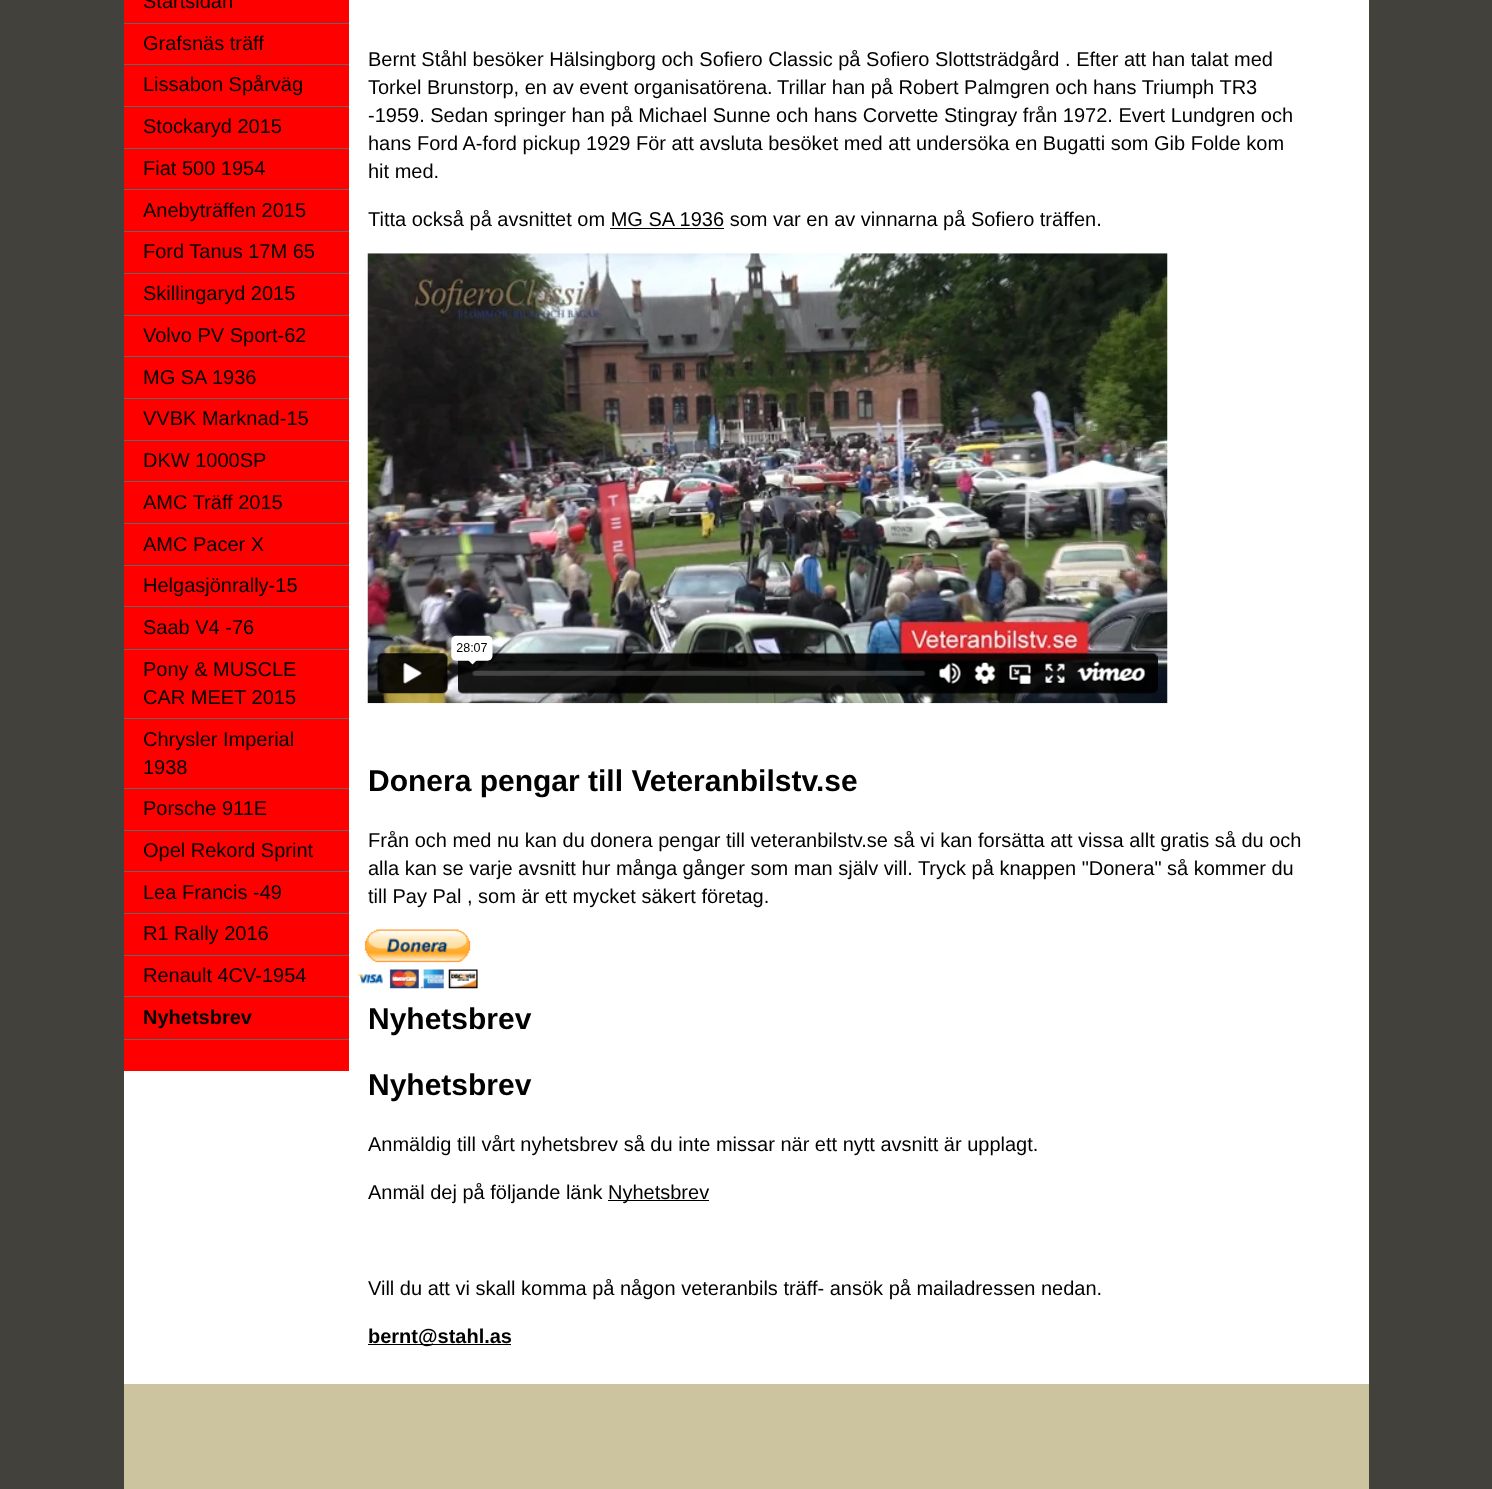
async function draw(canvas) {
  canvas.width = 1492;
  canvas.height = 1489;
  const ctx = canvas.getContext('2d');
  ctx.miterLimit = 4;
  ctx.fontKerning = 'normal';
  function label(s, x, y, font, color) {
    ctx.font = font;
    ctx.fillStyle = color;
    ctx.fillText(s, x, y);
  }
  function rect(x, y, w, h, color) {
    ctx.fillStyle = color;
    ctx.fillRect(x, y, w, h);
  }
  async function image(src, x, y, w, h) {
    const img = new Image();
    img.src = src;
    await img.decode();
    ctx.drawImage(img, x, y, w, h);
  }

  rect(0, 0, 1492, 1489, '#42413c');
  rect(124, 0, 1245, 1384, '#fff');
  rect(124, 0, 225, 1071, '#f00');
  rect(124, 23, 225, 1, '#666');
  label('Startsidan', 143, 8, '20px Liberation Sans', '#000');
  rect(124, 64, 225, 1, '#666');
  label('Grafsnäs träff', 143, 50, '20px Liberation Sans', '#000');
  rect(124, 106, 225, 1, '#666');
  label('Lissabon Spårväg', 143, 91, '20px Liberation Sans', '#000');
  rect(124, 148, 225, 1, '#666');
  label('Stockaryd 2015', 143, 133, '20px Liberation Sans', '#000');
  rect(124, 189, 225, 1, '#666');
  label('Fiat 500 1954', 143, 175, '20px Liberation Sans', '#000');
  rect(124, 231, 225, 1, '#666');
  label('Anebyträffen 2015', 143, 217, '20px Liberation Sans', '#000');
  rect(124, 273, 225, 1, '#666');
  label('Ford Tanus 17M 65', 143, 258, '20px Liberation Sans', '#000');
  rect(124, 315, 225, 1, '#666');
  label('Skillingaryd 2015', 143, 300, '20px Liberation Sans', '#000');
  rect(124, 356, 225, 1, '#666');
  label('Volvo PV Sport-62', 143, 342, '20px Liberation Sans', '#000');
  rect(124, 398, 225, 1, '#666');
  label('MG SA 1936', 143, 384, '20px Liberation Sans', '#000');
  rect(124, 440, 225, 1, '#666');
  label('VVBK Marknad-15', 143, 425, '20px Liberation Sans', '#000');
  rect(124, 481, 225, 1, '#666');
  label('DKW 1000SP', 143, 467, '20px Liberation Sans', '#000');
  rect(124, 523, 225, 1, '#666');
  label('AMC Träff 2015', 143, 509, '20px Liberation Sans', '#000');
  rect(124, 565, 225, 1, '#666');
  label('AMC Pacer X', 143, 551, '20px Liberation Sans', '#000');
  rect(124, 606, 225, 1, '#666');
  label('Helgasjönrally-15', 143, 592, '20px Liberation Sans', '#000');
  rect(124, 649, 225, 1, '#666');
  label('Saab V4 -76', 143, 634, '20px Liberation Sans', '#000');
  rect(124, 718, 225, 1, '#666');
  label('Pony & MUSCLE', 143, 676, '20px Liberation Sans', '#000');
  label('CAR MEET 2015', 143, 704, '20px Liberation Sans', '#000');
  rect(124, 788, 225, 1, '#666');
  label('Chrysler Imperial', 143, 746, '20px Liberation Sans', '#000');
  label('1938', 143, 774, '20px Liberation Sans', '#000');
  rect(124, 830, 225, 1, '#666');
  label('Porsche 911E', 143, 815, '20px Liberation Sans', '#000');
  rect(124, 871, 225, 1, '#666');
  label('Opel Rekord Sprint', 143, 857, '20px Liberation Sans', '#000');
  rect(124, 913, 225, 1, '#666');
  label('Lea Francis -49', 143, 899, '20px Liberation Sans', '#000');
  rect(124, 955, 225, 1, '#666');
  label('R1 Rally 2016', 143, 940, '20px Liberation Sans', '#000');
  rect(124, 996, 225, 1, '#666');
  label('Renault 4CV-1954', 143, 982, '20px Liberation Sans', '#000');
  rect(124, 1039, 225, 1, '#666');
  label('Nyhetsbrev', 143, 1024, 'bold 20px Liberation Sans', '#000');
  label('Bernt Ståhl besöker Hälsingborg och Sofiero Classic på Sofiero Slottsträdgård . Efter att han talat med', 368, 66, '20px Liberation Sans', '#000');
  label('Torkel Brunstorp, en av event organisatörena.', 368, 94, '20px Liberation Sans', '#000');
  label('Trillar han på Robert Palmgren och hans Triumph TR3', 777, 94, '20px Liberation Sans', '#000');
  label('-1959. Sedan springer han på Michael Sunne och hans Corvette Stingray från 1972. Evert Lundgren och', 368, 122, '20px Liberation Sans', '#000');
  label('hans Ford A-ford pickup 1929 För att avsluta besöket med att undersöka en Bugatti som Gib Folde kom', 368, 150, '20px Liberation Sans', '#000');
  label('hit med.', 368, 178, '20px Liberation Sans', '#000');
  label('Titta också på avsnittet om MG SA 1936 som var en av vinnarna på Sofiero träffen.', 368, 226, '20px Liberation Sans', '#000');
  rect(610, 228, 114, 1, '#000');
  await image('assets/img1.png', 367, 253, 801, 451);
  label('Donera pengar till Veteranbilstv.se', 368, 791, 'bold 30px Liberation Sans', '#000');
  label('Från och med nu kan du donera pengar till veteranbilstv.se så vi kan forsätta att vissa allt gratis så du och', 368, 847, '20px Liberation Sans', '#000');
  label('alla kan se varje avsnitt hur många gånger som man själv vill. Tryck på knappen "Donera" så kommer du', 368, 875, '20px Liberation Sans', '#000');
  label('till Pay Pal , som är ett mycket säkert företag.', 368, 903, '20px Liberation Sans', '#000');
  await image('assets/img2.png', 357, 929, 121, 60);
  label('Nyhetsbrev', 368, 1029, 'bold 30px Liberation Sans', '#000');
  label('Nyhetsbrev', 368, 1095, 'bold 30px Liberation Sans', '#000');
  label('Anmäldig till vårt nyhetsbrev så du inte missar när ett nytt avsnitt är upplagt.', 368, 1151, '20px Liberation Sans', '#000');
  label('Anmäl dej på följande länk', 368, 1199, '20px Liberation Sans', '#000');
  rect(608, 1200, 101, 1, '#000');
  label('Nyhetsbrev', 608, 1199, '20px Liberation Sans', '#000');
  label('Vill du att vi skall komma på någon veteranbils träff- ansök på mailadressen nedan.', 368, 1295, '20px Liberation Sans', '#000');
  rect(368, 1344, 143, 1, '#000');
  label('bernt@stahl.as', 368, 1343, 'bold 20px Liberation Sans', '#000');
  rect(124, 1384, 1245, 105, '#ccc49f');
}

draw(document.querySelector('canvas'));
